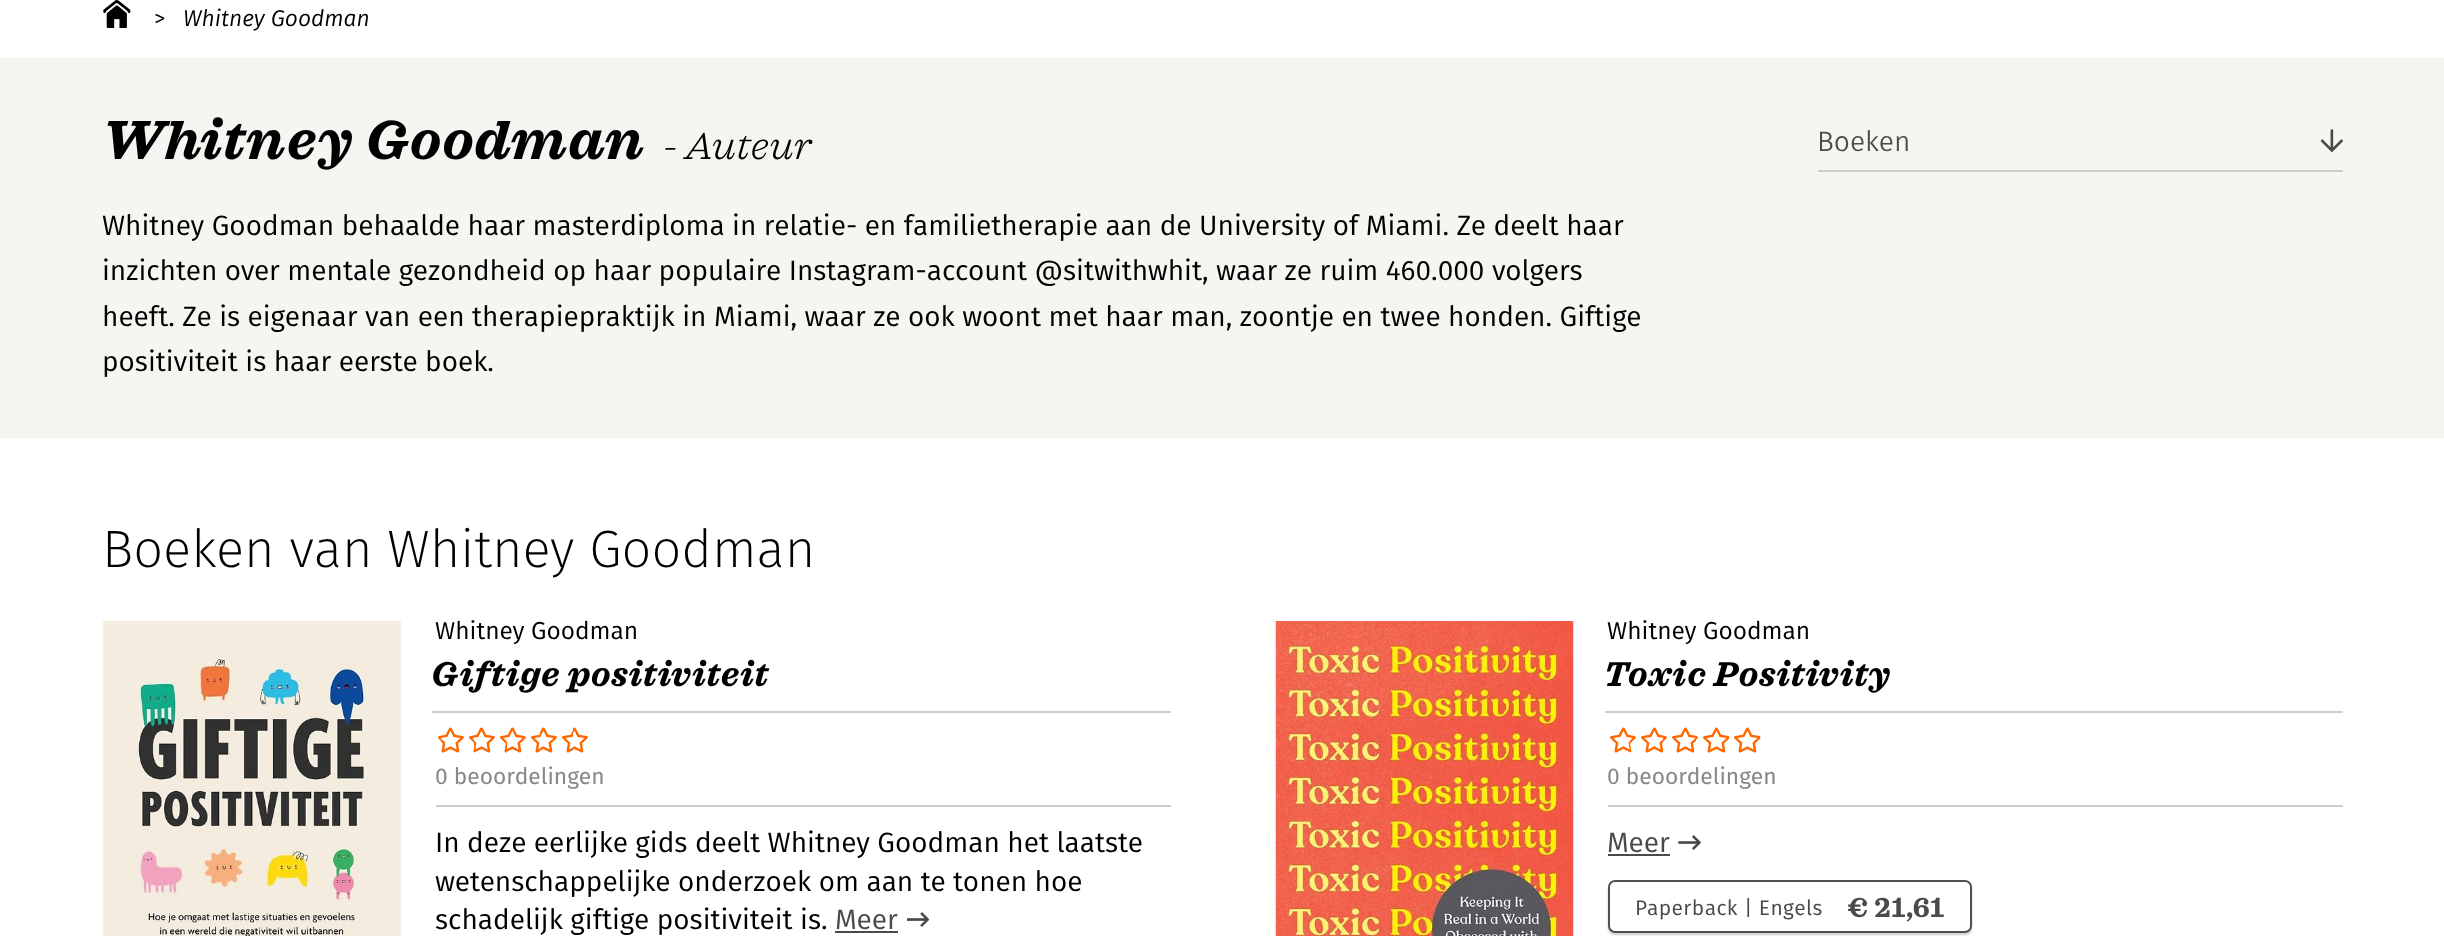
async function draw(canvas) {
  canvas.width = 2444;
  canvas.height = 936;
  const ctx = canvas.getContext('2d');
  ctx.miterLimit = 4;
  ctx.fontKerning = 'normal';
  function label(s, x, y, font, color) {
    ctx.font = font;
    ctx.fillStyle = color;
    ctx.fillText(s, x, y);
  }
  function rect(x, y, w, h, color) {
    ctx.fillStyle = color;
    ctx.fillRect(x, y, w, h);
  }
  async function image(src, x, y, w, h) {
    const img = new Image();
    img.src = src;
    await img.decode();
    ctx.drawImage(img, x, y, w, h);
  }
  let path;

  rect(0, 0, 2444, 936, '#fff');
  await image('assets/img1.png', 103, 0, 28, 28);
  label('>', 154, 26, '300 22.75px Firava', '#000');
  label('Whitney Goodman', 183, 26, 'italic 300 22.75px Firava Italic', '#000');
  rect(0, 58, 2444, 380, '#f6f5f1');
  ctx.letterSpacing = '1.1px';
  label('Whitney Goodman', 102, 159, 'italic bold 56px "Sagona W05"', '#000');
  ctx.letterSpacing = '0.75px';
  label('- Auteur', 663, 159, 'italic 300 38.5px "Sagona W05"', '#000');
  ctx.letterSpacing = '0px';
  label('Whitney Goodman behaalde haar masterdiploma in relatie- en familietherapie aan de University of Miami. Ze deelt haar', 102, 235, '28px Firava', '#000');
  label('inzichten over mentale gezondheid op haar populaire Instagram-account @sitwithwhit, waar ze ruim 460.000 volgers', 102, 280, '28px Firava', '#000');
  label('heeft. Ze is eigenaar van een therapiepraktijk in Miami, waar ze ook woont met haar man, zoontje en twee honden. Giftige', 102, 326, '28px Firava', '#000');
  label('positiviteit is haar eerste boek.', 102, 371, '28px Firava', '#000');
  rect(1818, 170, 525, 2, '#ccc');
  label('Boeken', 1817, 151, '300 28px "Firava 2"', '#4a4a4a');
  await image('assets/img2.png', 2321, 129, 22, 23);
  label('Boeken van Whitney Goodman', 102, 567, '200 52.5px Firava', '#000');
  await image('assets/img3.png', 103, 621, 298, 315);
  label('Whitney Goodman', 435, 639, '24.5px Firava', '#000');
  rect(432, 711, 739, 2, '#ccc');
  ctx.letterSpacing = '0.7px';
  label('Giftige positiviteit', 431, 686, 'italic bold 35px "Sagona W05"', '#000');
  rect(436, 805, 735, 2, '#ccc');
  await image('assets/img4.png', 438, 727, 150, 26);
  ctx.letterSpacing = '0px';
  label('0 beoordelingen', 435, 784, '22.75px "Firava 2"', '#888');
  label('In deze eerlijke gids deelt Whitney Goodman het laatste', 435, 852, '28px Firava', '#000');
  label('wetenschappelijke onderzoek om aan te tonen hoe', 435, 891, '28px Firava', '#000');
  label('schadelijk giftige positiviteit is.', 435, 929, '28px Firava', '#000');
  await image('assets/img5.png', 907, 912, 22, 15);
  label('Meer', 835, 929, '28px Firava', '#4a4a4a');
  rect(835, 931, 63, 2, '#4a4a4a');
  await image('assets/img6.png', 1275, 621, 299, 315);
  label('Whitney Goodman', 1607, 639, '24.5px Firava', '#000');
  rect(1605, 711, 738, 2, '#ccc');
  ctx.letterSpacing = '0.7px';
  label('Toxic Positivity', 1604, 686, 'italic bold 35px "Sagona W05"', '#000');
  rect(1608, 805, 735, 2, '#ccc');
  await image('assets/img7.png', 1610, 727, 151, 26);
  ctx.letterSpacing = '0px';
  label('0 beoordelingen', 1607, 784, '22.75px "Firava 2"', '#888');
  await image('assets/img8.png', 1678, 835, 23, 15);
  label('Meer', 1607, 852, '28px Firava', '#4a4a4a');
  rect(1608, 854, 62, 2, '#4a4a4a');
  ctx.save();
  path = new Path2D('M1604 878H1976V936H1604ZM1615 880H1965C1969 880 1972 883 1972 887V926C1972 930 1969 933 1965 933H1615C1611 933 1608 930 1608 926V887C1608 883 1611 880 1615 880Z');
  ctx.clip(path, 'evenodd');
  ctx.fillStyle = '#ccc';
  ctx.filter = 'blur(1px)';
  ctx.beginPath();
  ctx.roundRect(1608, 882, 364, 53, 7);
  ctx.fill();
  ctx.filter = 'none';
  ctx.restore();
  ctx.beginPath();
  ctx.roundRect(1609, 881, 362, 51, 6);
  ctx.strokeStyle = '#505050';
  ctx.lineWidth = 2;
  ctx.stroke();
  ctx.letterSpacing = '0.4px';
  label('Paperback | Engels', 1635, 915, '21px Firava', '#4a4a4a');
  ctx.letterSpacing = '0.5px';
  label('€ 21,61', 1847, 917, 'bold 28px "Sagona W05"', '#4a4a4a');
}

draw(document.querySelector('canvas'));
